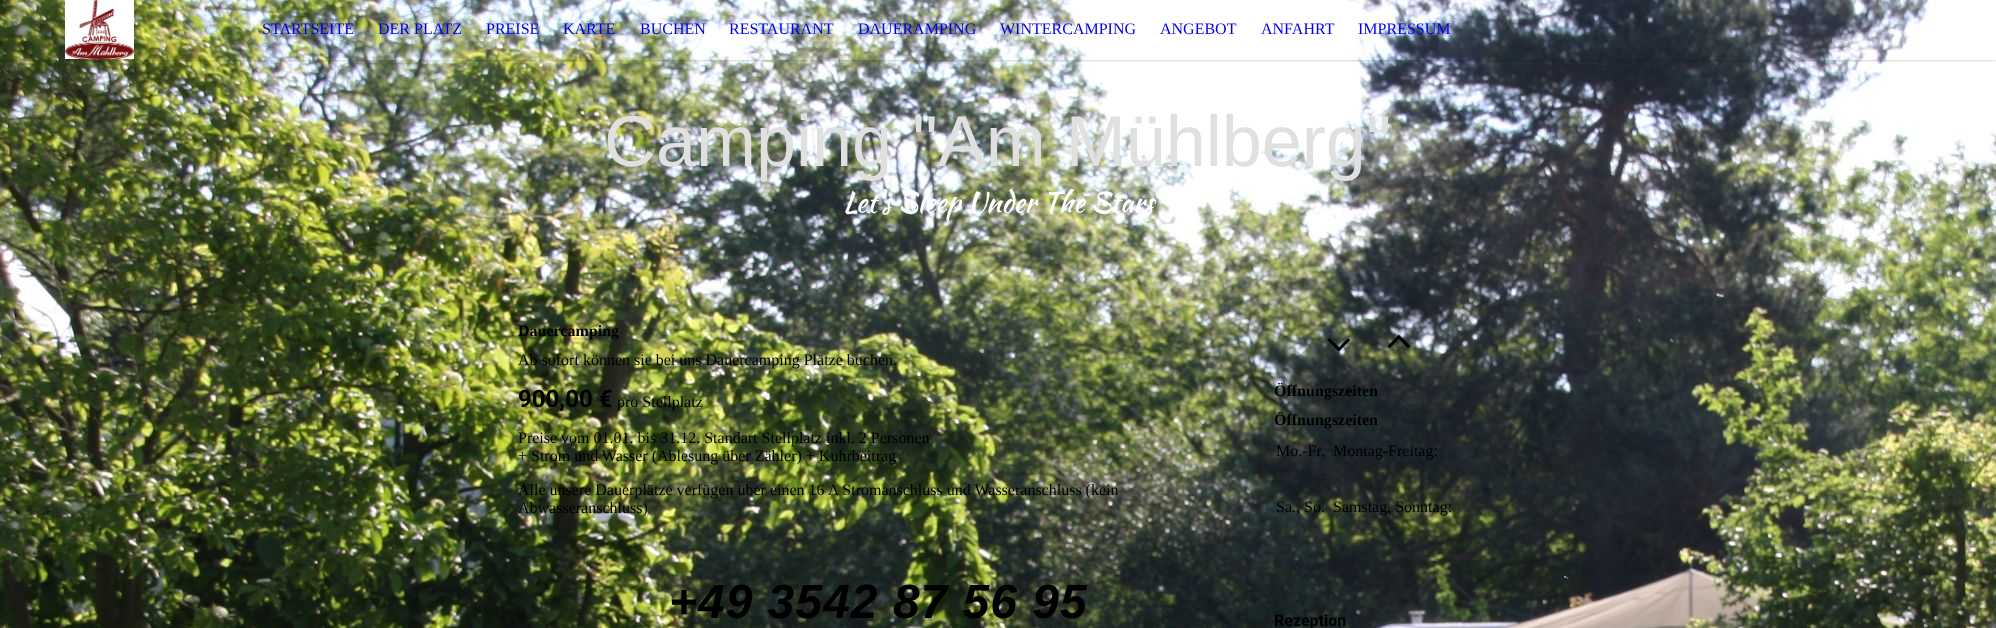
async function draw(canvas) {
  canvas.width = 1996;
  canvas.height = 628;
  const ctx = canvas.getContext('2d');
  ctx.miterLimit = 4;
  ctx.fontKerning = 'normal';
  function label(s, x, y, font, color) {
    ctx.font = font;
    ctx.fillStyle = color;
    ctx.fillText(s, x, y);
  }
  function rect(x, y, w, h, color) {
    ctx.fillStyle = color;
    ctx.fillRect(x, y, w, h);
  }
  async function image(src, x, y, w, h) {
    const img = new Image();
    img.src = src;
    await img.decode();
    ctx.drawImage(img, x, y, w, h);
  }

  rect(0, 0, 1996, 628, '#fff');
  await image('assets/img1.png', 0, 0, 1996, 628);
  ctx.save();
  ctx.beginPath();
  ctx.rect(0, 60, 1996, 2);
  ctx.clip();
  ctx.fillStyle = '#0000004d';
  ctx.filter = 'blur(1.5px)';
  ctx.beginPath();
  ctx.rect(0, 0, 1996, 60);
  ctx.fill();
  ctx.filter = 'none';
  ctx.restore();
  await image('assets/img2.png', 65, 0, 69, 59);
  label('STARTSEITE', 262, 34, '16px Liberation Serif', '#00e');
  label('DER PLATZ', 378, 34, '16px Liberation Serif', '#00e');
  label('PREISE', 486, 34, '16px Liberation Serif', '#00e');
  label('KARTE', 563, 34, '16px Liberation Serif', '#00e');
  label('BUCHEN', 640, 34, '16px Liberation Serif', '#00e');
  label('RESTAURANT', 729, 34, '16px Liberation Serif', '#00e');
  label('DAUERAMPING', 858, 34, '16px Liberation Serif', '#00e');
  label('WINTERCAMPING', 1000, 34, '16px Liberation Serif', '#00e');
  label('ANGEBOT', 1160, 34, '16px Liberation Serif', '#00e');
  label('ANFAHRT', 1261, 34, '16px Liberation Serif', '#00e');
  label('IMPRESSUM', 1358, 34, '16px Liberation Serif', '#00e');
  label('Camping "Am Mühlberg"', 604, 166, '72px Liberation Sans', '#e0e0e0');
  label('Let\'s Sleep Under The Stars', 843, 212, '28px Kaushan Script', '#fff');
  label('Dauercamping', 518, 336, 'bold 16px Liberation Serif', '#000');
  label('Ab sofort können sie bei uns Dauercamping Plätze buchen.', 518, 365, '16px Liberation Serif', '#000');
  label('900,00 €', 518, 407, 'bold 24px Roboto', '#000');
  label('pro Stellplatz', 617, 407, '16px Liberation Serif', '#000');
  label('Preise vom 01.01. bis 31.12. Standart Stellplatz inkl. 2 Personen', 518, 443, '16px Liberation Serif', '#000');
  label('+ Strom und Wasser (Ablesung über Zähler) + Kuhrbeitrag', 518, 461, '16px Liberation Serif', '#000');
  label('Alle unsere Dauerplätze verfügen über einen 16 A Stromanschluss und Wasseranschluss (kein', 518, 495, '16px Liberation Serif', '#000');
  label('Abwasseranschluss)', 518, 513, '16px Liberation Serif', '#000');
  ctx.letterSpacing = '1px';
  label('+49 3542 87 56 95', 669, 618, 'italic bold 48px Liberation Sans', '#000');
  await image('assets/img3.png', 1327, 338, 23, 14);
  await image('assets/img4.png', 1387, 335, 23, 13);
  ctx.letterSpacing = '0px';
  label('Öffnungszeiten', 1274, 396, 'bold 16px Liberation Serif', '#000');
  label('Öffnungszeiten', 1274, 425, 'bold 16px Liberation Serif', '#000');
  label('Mo.-Fr.', 1276, 456, '16px Liberation Serif', '#000');
  label('Montag-Freitag:', 1333, 456, '16px Liberation Serif', '#000');
  label('Sa., So.', 1276, 512, '16px Liberation Serif', '#000');
  label('Samstag, Sonntag:', 1333, 512, '16px Liberation Serif', '#000');
  label('Rezeption', 1274, 626, 'bold 16px Roboto', '#000');
}

draw(document.querySelector('canvas'));
